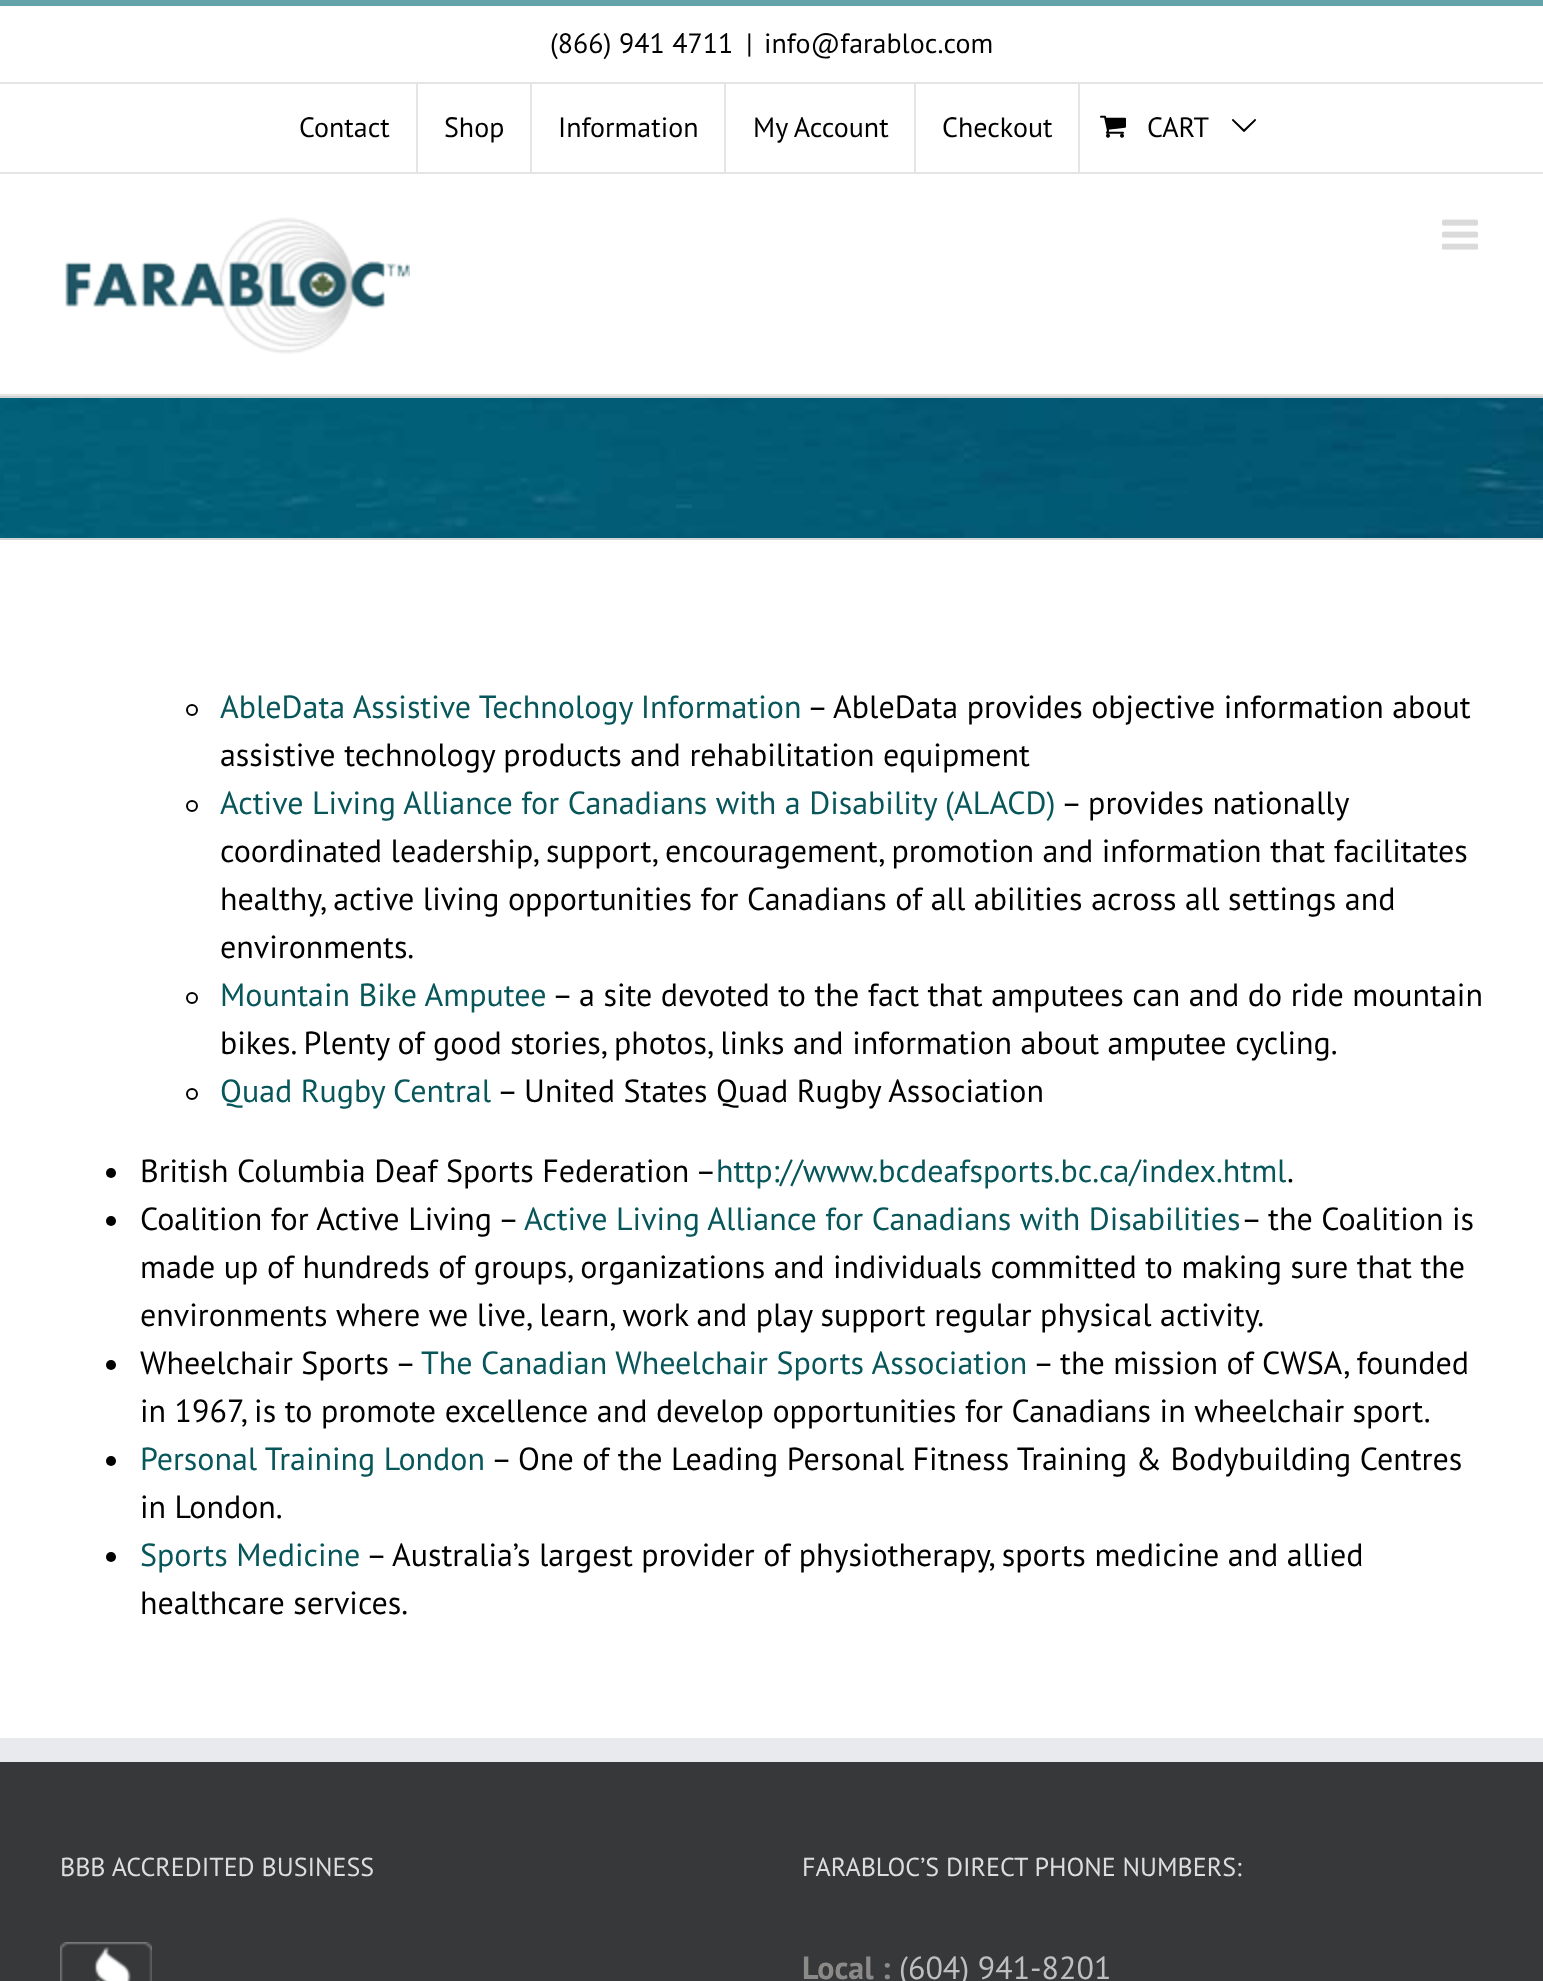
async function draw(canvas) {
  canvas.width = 1543;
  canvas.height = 1981;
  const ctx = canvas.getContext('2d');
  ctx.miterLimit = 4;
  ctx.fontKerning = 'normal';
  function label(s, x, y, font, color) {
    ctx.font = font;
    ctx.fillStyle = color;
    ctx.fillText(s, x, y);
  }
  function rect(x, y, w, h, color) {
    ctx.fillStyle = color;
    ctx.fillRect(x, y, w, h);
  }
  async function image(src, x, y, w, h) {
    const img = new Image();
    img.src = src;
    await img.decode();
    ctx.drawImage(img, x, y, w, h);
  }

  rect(0, 0, 1543, 1981, '#fff');
  rect(0, 0, 1543, 6, '#65a3ab');
  rect(0, 172, 1543, 2, '#e5e5e5');
  rect(0, 82, 1543, 2, '#e5e5e5');
  label('(866) 941 4711', 550, 53, '28px PT Sans', '#000');
  label('|', 746, 53, '28px PT Sans', '#000');
  label('info@farabloc.com', 764, 53, '28px PT Sans', '#000');
  label('Contact', 299, 137, '28px PT Sans', '#000');
  rect(416, 84, 2, 88, '#e5e5e5');
  label('Shop', 444, 137, '28px PT Sans', '#000');
  rect(530, 84, 2, 88, '#e5e5e5');
  label('Information', 558, 137, '28px PT Sans', '#000');
  rect(724, 84, 2, 88, '#e5e5e5');
  label('My Account', 753, 137, '28px PT Sans', '#000');
  rect(914, 84, 2, 88, '#e5e5e5');
  label('Checkout', 942, 137, '28px PT Sans', '#000');
  rect(1078, 84, 2, 88, '#e5e5e5');
  await image('assets/img1.png', 1100, 115, 26, 23);
  label('CART', 1147, 137, '28px PT Sans', '#000');
  await image('assets/img2.png', 1232, 119, 24, 13);
  rect(0, 394, 1543, 2, '#e5e5e5');
  await image('assets/img3.png', 65, 217, 345, 137);
  await image('assets/img4.png', 1442, 219, 36, 31);
  await image('assets/img5.png', 0, 398, 1543, 140);
  rect(0, 396, 1543, 2, '#d2d3d4');
  rect(0, 538, 1543, 2, '#d2d3d4');
  ctx.beginPath();
  ctx.arc(192, 710, 5, 0, 2 * Math.PI);
  ctx.strokeStyle = '#000';
  ctx.lineWidth = 2;
  ctx.stroke();
  label('AbleData Assistive Technology Information', 220, 718, '32px PT Sans', '#07565a');
  label('– AbleData provides objective information about', 807, 718, '32px PT Sans', '#000');
  label('assistive technology products and rehabilitation equipment', 220, 766, '32px PT Sans', '#000');
  ctx.beginPath();
  ctx.arc(192, 806, 5, 0, 2 * Math.PI);
  ctx.stroke();
  label('Active Living Alliance for Canadians with a Disability (ALACD)', 220, 814, '32px PT Sans', '#07565a');
  label('– provides nationally', 1061, 814, '32px PT Sans', '#000');
  label('coordinated leadership, support, encouragement, promotion and information that facilitates', 220, 862, '32px PT Sans', '#000');
  label('healthy, active living opportunities for Canadians of all abilities across all settings and', 220, 910, '32px PT Sans', '#000');
  label('environments.', 220, 958, '32px PT Sans', '#000');
  ctx.beginPath();
  ctx.arc(192, 998, 5, 0, 2 * Math.PI);
  ctx.stroke();
  label('Mountain Bike Amputee', 220, 1006, '32px PT Sans', '#07565a');
  label('– a site devoted to the fact that amputees can and do ride mountain', 552, 1006, '32px PT Sans', '#000');
  label('bikes. Plenty of good stories, photos, links and information about amputee cycling.', 220, 1054, '32px PT Sans', '#000');
  ctx.beginPath();
  ctx.arc(192, 1094, 5, 0, 2 * Math.PI);
  ctx.stroke();
  label('Quad Rugby Central', 220, 1102, '32px PT Sans', '#07565a');
  label('– United States Quad Rugby Association', 497, 1102, '32px PT Sans', '#000');
  ctx.beginPath();
  ctx.arc(111, 1173, 5, 0, 2 * Math.PI);
  ctx.fill();
  label('British Columbia Deaf Sports Federation –', 140, 1182, '32px PT Sans', '#000');
  label('http://www.bcdeafsports.bc.ca/index.html', 716, 1182, '32px PT Sans', '#07565a');
  label('.', 1287, 1182, '32px PT Sans', '#000');
  ctx.beginPath();
  ctx.arc(111, 1221, 5, 0, 2 * Math.PI);
  ctx.fill();
  label('Coalition for Active Living –', 140, 1230, '32px PT Sans', '#000');
  label('Active Living Alliance for Canadians with Disabilities', 524, 1230, '32px PT Sans', '#07565a');
  label('– the Coalition is', 1241, 1230, '32px PT Sans', '#000');
  label('made up of hundreds of groups, organizations and individuals committed to making sure that the', 140, 1278, '32px PT Sans', '#000');
  label('environments where we live, learn, work and play support regular physical activity.', 140, 1326, '32px PT Sans', '#000');
  ctx.beginPath();
  ctx.arc(111, 1365, 5, 0, 2 * Math.PI);
  ctx.fill();
  label('Wheelchair Sports –', 140, 1374, '32px PT Sans', '#000');
  label('The Canadian Wheelchair Sports Association', 421, 1374, '32px PT Sans', '#07565a');
  label('– the mission of CWSA, founded', 1033, 1374, '32px PT Sans', '#000');
  label('in 1967, is to promote excellence and develop opportunities for Canadians in wheelchair sport.', 140, 1422, '32px PT Sans', '#000');
  ctx.beginPath();
  ctx.arc(111, 1461, 5, 0, 2 * Math.PI);
  ctx.fill();
  label('Personal Training London', 140, 1470, '32px PT Sans', '#07565a');
  label('– One of the Leading Personal Fitness Training & Bodybuilding Centres', 491, 1470, '32px PT Sans', '#000');
  label('in London.', 140, 1518, '32px PT Sans', '#000');
  ctx.beginPath();
  ctx.arc(111, 1557, 5, 0, 2 * Math.PI);
  ctx.fill();
  label('Sports Medicine', 140, 1566, '32px PT Sans', '#07565a');
  label('– Australia’s largest provider of physiotherapy, sports medicine and allied', 366, 1566, '32px PT Sans', '#000');
  label('healthcare services.', 140, 1614, '32px PT Sans', '#000');
  rect(0, 1762, 1543, 219, '#363839');
  rect(0, 1738, 1543, 24, '#e9eaee');
  label('BBB ACCREDITED BUSINESS', 60, 1876, '26px PT Sans', '#ddd');
  await image('assets/img6.png', 60, 1942, 92, 39);
  label('FARABLOC’S DIRECT PHONE NUMBERS:', 802, 1876, '26px PT Sans', '#ddd');
  label('Local :', 802, 1979, 'bold 32px PT Sans', '#8c8989');
  label('(604) 941-8201', 899, 1979, '32px PT Sans', '#bfbfbf');
}

draw(document.querySelector('canvas'));
